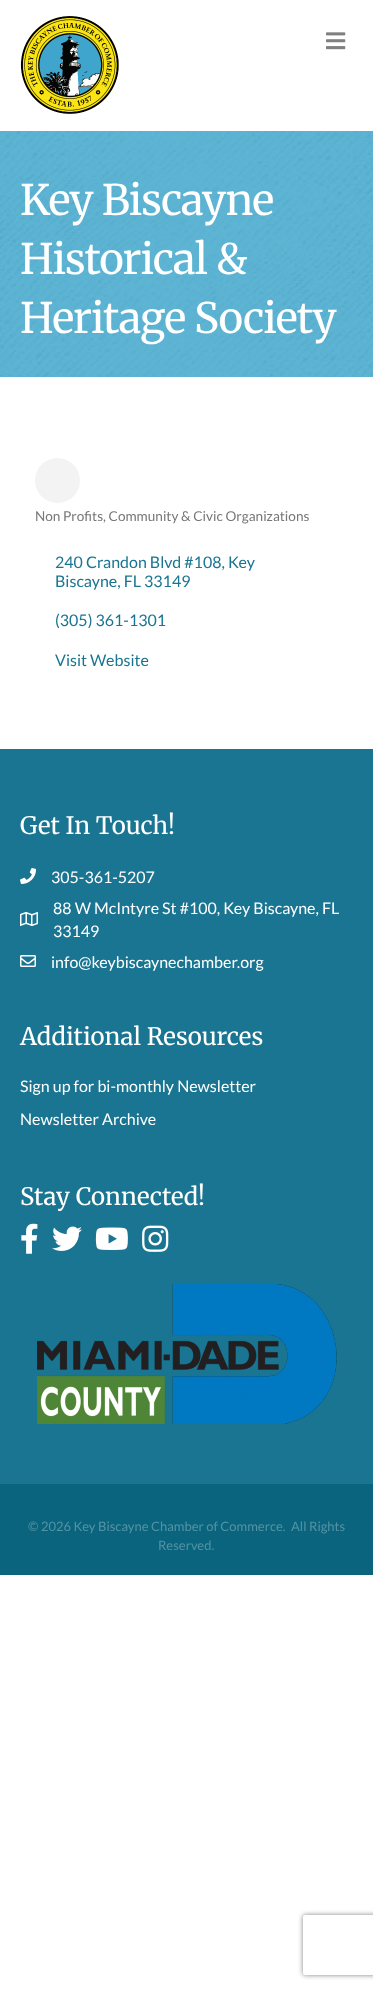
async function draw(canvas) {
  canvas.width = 373;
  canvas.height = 1989;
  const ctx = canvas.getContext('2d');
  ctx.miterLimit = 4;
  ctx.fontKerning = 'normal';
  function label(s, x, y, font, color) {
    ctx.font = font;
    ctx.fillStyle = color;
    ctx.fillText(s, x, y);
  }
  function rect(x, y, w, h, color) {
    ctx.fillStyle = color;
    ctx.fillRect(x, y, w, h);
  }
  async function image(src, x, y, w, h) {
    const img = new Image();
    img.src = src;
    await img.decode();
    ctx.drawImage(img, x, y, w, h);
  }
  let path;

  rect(0, 0, 373, 1989, '#fff');
  await image('assets/img1.png', 20, 16, 99, 98);
  await image('assets/img2.png', 326, 32, 20, 18);
  await image('assets/img3.png', 0, 131, 373, 246);
  ctx.letterSpacing = '-1px';
  label('Key Biscayne', 20, 215, '300 42px Merriweather', '#fff');
  label('Historical &', 20, 274, '300 42px Merriweather', '#fff');
  label('Heritage Society', 20, 333, '300 42px Merriweather', '#fff');
  ctx.fillStyle = '#f3f3f3';
  ctx.beginPath();
  ctx.arc(57.5, 480.5, 22.5, 0, 2 * Math.PI);
  ctx.fill();
  ctx.letterSpacing = '0px';
  label('Non Profits, Community & Civic Organizations', 35, 521, '13.6px Lato', '#777');
  label('240 Crandon Blvd #108, Key', 55, 568, '16px Lato', '#197591');
  label('Biscayne, FL 33149', 55, 587, '16px Lato', '#197591');
  label('(305) 361-1301', 55, 626, '16px Lato', '#197591');
  label('Visit Website', 55, 666, '16px Lato', '#197591');
  rect(0, 749, 373, 735, '#197591');
  label('Get In Touch!', 20, 834, '300 24px Merriweather', '#fff');
  await image('assets/img4.png', 20, 868, 16, 16);
  label('305-361-5207', 51, 883, '16px Lato', '#fff');
  await image('assets/img5.png', 20, 912, 18, 14);
  label('88 W McIntyre St #100, Key Biscayne, FL', 53, 914, '16px Lato', '#fff');
  label('33149', 53, 937, '16px Lato', '#fff');
  await image('assets/img6.png', 20, 955, 16, 12);
  label('info@keybiscaynechamber.org', 51, 968, '16px Lato', '#fff');
  label('Additional Resources', 20, 1045, '300 24px Merriweather', '#fff');
  label('Sign up for bi-monthly Newsletter', 20, 1092, '16px Lato', '#fff');
  label('Newsletter Archive', 20, 1125, '16px Lato', '#fff');
  label('Stay Connected!', 20, 1205, '300 24px Merriweather', '#fff');
  await image('assets/img7.png', 21, 1223, 17, 31);
  await image('assets/img8.png', 52, 1226, 30, 25);
  await image('assets/img9.png', 95, 1227, 33, 23);
  await image('assets/img10.png', 142, 1225, 27, 27);
  await image('assets/img11.png', 37, 1284, 300, 140);
  rect(0, 1484, 373, 91, '#0a647d');
  label('© 2026 Key Biscayne Chamber of Commerce.', 28, 1531, '13px Lato', '#5493a4');
  label('All Rights', 291, 1531, '13px Lato', '#5493a4');
  label('Reserved.', 158, 1550, '13px Lato', '#5493a4');
  ctx.save();
  path = new Path2D('M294 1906H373V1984H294ZM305 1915H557C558 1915 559 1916 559 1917V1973C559 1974 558 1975 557 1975H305C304 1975 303 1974 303 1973V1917C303 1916 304 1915 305 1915Z');
  ctx.clip(path, 'evenodd');
  ctx.fillStyle = '#808080';
  ctx.filter = 'blur(2.5px)';
  ctx.beginPath();
  ctx.roundRect(303, 1915, 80, 60, 2);
  ctx.fill();
  ctx.filter = 'none';
  ctx.restore();
}

draw(document.querySelector('canvas'));
